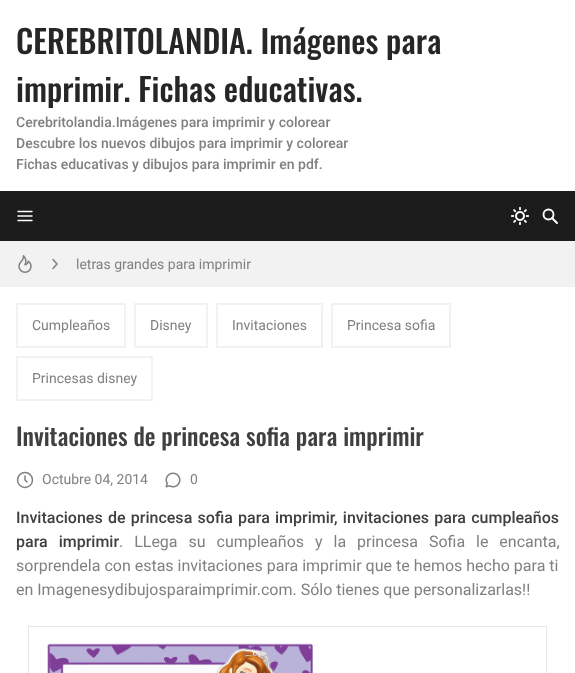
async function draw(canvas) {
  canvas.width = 575;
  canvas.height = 673;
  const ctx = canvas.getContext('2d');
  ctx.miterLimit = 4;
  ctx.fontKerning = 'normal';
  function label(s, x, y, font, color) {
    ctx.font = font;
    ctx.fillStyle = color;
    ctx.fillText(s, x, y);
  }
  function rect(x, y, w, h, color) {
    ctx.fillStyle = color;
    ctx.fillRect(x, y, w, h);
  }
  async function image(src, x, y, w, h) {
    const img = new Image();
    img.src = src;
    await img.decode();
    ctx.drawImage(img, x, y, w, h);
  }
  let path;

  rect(0, 0, 575, 673, '#fff');
  label('CEREBRITOLANDIA. Imágenes para', 16, 54, '500 32px Oswald', '#262626');
  label('imprimir. Fichas educativas.', 16, 102, '500 32px Oswald', '#262626');
  label('Cerebritolandia.Imágenes para imprimir y colorear', 16, 127, '500 14px Roboto', '#808080');
  label('Descubre los nuevos dibujos para imprimir y colorear', 16, 148, '500 14px Roboto', '#808080');
  label('Fichas educativas y dibujos para imprimir en pdf.', 16, 169, '500 14px Roboto', '#808080');
  rect(0, 191, 575, 50, '#1c1c1c');
  path = new Path2D('M18 211.5H32M18 216H32M18 220.5H32');
  ctx.strokeStyle = '#fff';
  ctx.lineWidth = 1.5;
  ctx.lineCap = 'round';
  ctx.lineJoin = 'round';
  ctx.stroke(path);
  await image('assets/img1.png', 511, 207, 18, 18);
  ctx.beginPath();
  ctx.arc(548.5, 214.5, 5, 0, 2 * Math.PI);
  ctx.lineWidth = 1.9;
  ctx.stroke();
  path = new Path2D('M552 218L557 223');
  ctx.stroke(path);
  rect(0, 241, 575, 46, '#f2f2f2');
  await image('assets/img2.png', 18, 255, 14, 18);
  path = new Path2D('M53 268.5L57 264L53 259.5');
  ctx.strokeStyle = '#808080';
  ctx.lineWidth = 1.5;
  ctx.stroke(path);
  label('letras grandes para imprimir', 76, 269, '14px Roboto', '#808080');
  ctx.strokeStyle = '#f2f2f2';
  ctx.lineWidth = 2;
  ctx.lineJoin = 'miter';
  ctx.strokeRect(17, 304, 108, 43);
  label('Cumpleaños', 32, 330, '14px Roboto', '#808080');
  ctx.strokeRect(135, 304, 72, 43);
  label('Disney', 150, 330, '14px Roboto', '#808080');
  ctx.strokeRect(217, 304, 105, 43);
  label('Invitaciones', 232, 330, '14px Roboto', '#808080');
  ctx.strokeRect(332, 304, 118, 43);
  label('Princesa sofia', 347, 330, '14px Roboto', '#808080');
  ctx.strokeRect(17, 357, 135, 43);
  label('Princesas disney', 32, 383, '14px Roboto', '#808080');
  label('Invitaciones de princesa sofia para imprimir', 16, 446, '500 24px Oswald', '#404040');
  ctx.beginPath();
  ctx.arc(25, 480, 7.5, 0, 2 * Math.PI);
  ctx.strokeStyle = '#808080';
  ctx.lineWidth = 1.5;
  ctx.stroke();
  path = new Path2D('M25 476V480L27 482');
  ctx.lineJoin = 'round';
  ctx.stroke(path);
  label('Octubre 04, 2014', 42, 484, '14px Roboto', '#808080');
  await image('assets/img3.png', 165, 472, 16, 16);
  label('0', 190, 484, '14px Roboto', '#808080');
  ctx.wordSpacing = '1.25px';
  label('Invitaciones de princesa sofia para imprimir, invitaciones para cumpleaños', 16, 523, '500 16px Roboto', '#404040');
  ctx.wordSpacing = '7px';
  label('para imprimir', 16, 547, '500 16px Roboto', '#404040');
  label('. LLega su cumpleaños y la princesa Sofia le encanta,', 119, 547, '16px Roboto', '#808080');
  ctx.wordSpacing = '0px';
  label('sorprendela con estas invitaciones para imprimir que te hemos hecho para ti', 16, 571, '16px Roboto', '#808080');
  label('en Imagenesydibujosparaimprimir.com. Sólo tienes que personalizarlas!!', 16, 595, '16px Roboto', '#808080');
  rect(28, 626, 519, 1, '#e6e6e6');
  rect(546, 626, 1, 47, '#e6e6e6');
  rect(28, 626, 1, 47, '#e6e6e6');
  await image('assets/img4.png', 47, 643, 266, 30);
}

draw(document.querySelector('canvas'));
